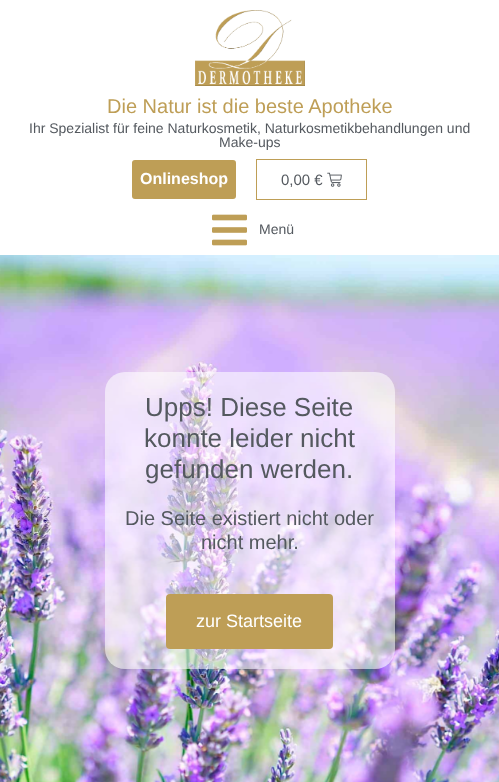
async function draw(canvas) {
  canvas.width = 499;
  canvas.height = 782;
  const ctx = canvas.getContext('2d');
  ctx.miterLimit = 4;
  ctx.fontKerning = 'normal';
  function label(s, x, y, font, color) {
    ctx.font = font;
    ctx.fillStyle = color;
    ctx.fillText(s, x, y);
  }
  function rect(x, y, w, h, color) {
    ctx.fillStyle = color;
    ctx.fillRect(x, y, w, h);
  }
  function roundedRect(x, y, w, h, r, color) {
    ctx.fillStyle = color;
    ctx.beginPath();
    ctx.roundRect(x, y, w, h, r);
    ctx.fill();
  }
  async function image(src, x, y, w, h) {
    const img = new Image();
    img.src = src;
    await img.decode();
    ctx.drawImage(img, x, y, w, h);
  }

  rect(0, 0, 499, 782, '#fff');
  await image('assets/img1.png', 195, 10, 110, 76);
  label('Die Natur ist die beste Apotheke', 107, 113, '20px Liberation Sans', '#be9e56');
  label('Ihr Spezialist für feine Naturkosmetik, Naturkosmetikbehandlungen und', 29, 133, '14px Liberation Sans', '#54595f');
  label('Make-ups', 219, 147, '14px Liberation Sans', '#54595f');
  ctx.fillStyle = '#be9e56';
  ctx.beginPath();
  ctx.roundRect(133.5, 161.5, 101, 36, 1.5);
  ctx.fill();
  ctx.strokeStyle = '#be9e56';
  ctx.lineWidth = 3;
  ctx.stroke();
  label('Onlineshop', 140, 184, 'bold 16px Liberation Sans', '#fff');
  ctx.lineWidth = 1;
  ctx.strokeRect(256.5, 159.5, 110, 40);
  label('0,00 €', 281, 185, '15px Liberation Sans', '#54595f');
  await image('assets/img2.png', 327, 172, 15, 15);
  await image('assets/img3.png', 212, 214, 35, 32);
  label('Menü', 259, 234, '14px Liberation Sans', '#54595f');
  await image('assets/img4.png', 0, 255, 499, 527);
  roundedRect(105, 372, 290, 297, 20, '#ffffff94');
  label('Upps! Diese Seite', 145, 416, '26px Liberation Sans', '#54595f');
  label('konnte leider nicht', 144, 447, '26px Liberation Sans', '#54595f');
  label('gefunden werden.', 145, 478, '26px Liberation Sans', '#54595f');
  label('Die Seite existiert nicht oder', 125, 525, '20px Liberation Sans', '#54595f');
  label('nicht mehr.', 201, 549, '20px Liberation Sans', '#54595f');
  roundedRect(166, 594, 167, 55, 4, '#be9e56');
  label('zur Startseite', 196, 627, '18px Liberation Sans', '#fff');
}

draw(document.querySelector('canvas'));
